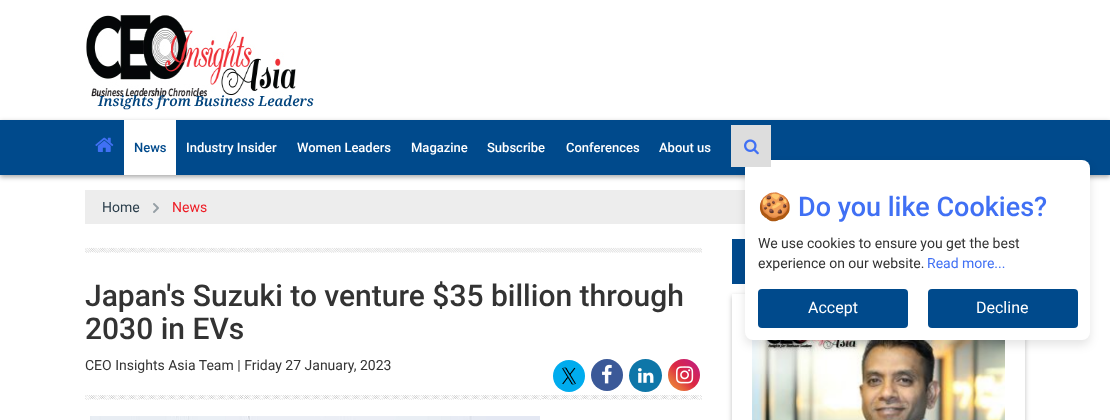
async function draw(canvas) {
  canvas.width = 1110;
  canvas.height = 420;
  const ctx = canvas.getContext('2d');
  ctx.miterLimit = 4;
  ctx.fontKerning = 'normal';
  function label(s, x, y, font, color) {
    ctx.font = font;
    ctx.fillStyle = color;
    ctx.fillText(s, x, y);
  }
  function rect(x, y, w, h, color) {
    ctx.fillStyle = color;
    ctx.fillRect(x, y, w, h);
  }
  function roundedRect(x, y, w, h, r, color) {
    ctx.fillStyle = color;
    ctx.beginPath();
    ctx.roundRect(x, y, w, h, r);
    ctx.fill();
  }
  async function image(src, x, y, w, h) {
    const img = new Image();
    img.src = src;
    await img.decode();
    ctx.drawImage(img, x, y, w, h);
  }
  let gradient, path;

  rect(0, 0, 1110, 420, '#fff');
  await image('assets/img1.png', 86, 15, 210, 84);
  label('Insights from Business Leaders', 98, 106, 'italic 600 14px Noto Serif', '#02447d');
  ctx.fillStyle = '#00000059';
  ctx.filter = 'blur(2.5px)';
  ctx.beginPath();
  ctx.rect(0, 122, 1110, 55);
  ctx.fill();
  ctx.filter = 'none';
  rect(0, 120, 1110, 55, '#004a8c');
  await image('assets/img2.png', 95, 137, 19, 15);
  rect(124, 120, 52, 55, '#fff');
  label('News', 134, 152, '500 13px Roboto', '#004a8c');
  label('Industry Insider', 186, 152, '500 13px Roboto', '#fff');
  label('Women Leaders', 297, 152, '500 13px Roboto', '#fff');
  label('Magazine', 411, 152, '500 13px Roboto', '#fff');
  label('Subscribe', 487, 152, '500 13px Roboto', '#fff');
  label('Conferences', 566, 152, '500 13px Roboto', '#fff');
  label('About us', 659, 152, '500 13px Roboto', '#fff');
  rect(85, 190, 660, 34, '#ededed');
  rect(732, 239, 13, 45, '#004a8d');
  ctx.save();
  path = new Path2D('M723 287H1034V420H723ZM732 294H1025V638H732Z');
  ctx.clip(path, 'evenodd');
  ctx.fillStyle = '#00000040';
  ctx.filter = 'blur(2.5px)';
  ctx.beginPath();
  ctx.rect(732, 296, 293, 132);
  ctx.fill();
  ctx.filter = 'none';
  ctx.restore();
  await image('assets/img12.png', 752, 339, 253, 81);
  ctx.fillStyle = '#0000001a';
  ctx.filter = 'blur(5px)';
  ctx.beginPath();
  ctx.roundRect(745, 165, 345, 180, 8);
  ctx.fill();
  ctx.filter = 'none';
  roundedRect(745, 160, 345, 180, 8, '#fff');
  rect(731, 125, 40, 42, '#ddd');
  await image('assets/img3.png', 744, 139, 15, 16);
  label('Home', 102, 212, '14px Roboto', '#2c3f4c');
  await image('assets/img4.png', 153, 203, 6, 10);
  label('News', 172, 212, '14px Roboto', '#ee1c25');
  await image('assets/img5.png', 85, 247, 617, 6);
  label('Japan\'s Suzuki to venture $35 billion through', 85, 306, '500 30px Roboto', '#333');
  label('2030 in EVs', 85, 339, '500 30px Roboto', '#333');
  label('CEO Insights Asia Team | Friday 27 January, 2023', 85, 370, '14px Roboto', '#333');
  ctx.fillStyle = '#00acee';
  ctx.beginPath();
  ctx.arc(569, 376, 16, 0, 2 * Math.PI);
  ctx.fill();
  await image('assets/img6.png', 562, 367, 14, 18);
  ctx.fillStyle = '#3b5998';
  ctx.beginPath();
  ctx.arc(607, 375, 16, 0, 2 * Math.PI);
  ctx.fill();
  await image('assets/img7.png', 602, 364, 10, 20);
  ctx.fillStyle = '#0e76a8';
  ctx.beginPath();
  ctx.arc(645.5, 375.5, 16.5, 0, 2 * Math.PI);
  ctx.fill();
  await image('assets/img8.png', 638, 368, 16, 15);
  gradient = ctx.createLinearGradient(668, 391, 700, 359);
  gradient.addColorStop(0, '#f09433');
  gradient.addColorStop(0.25, '#e6683c');
  gradient.addColorStop(0.5, '#dc2743');
  gradient.addColorStop(0.75, '#cc2366');
  gradient.addColorStop(1, '#bc1888');
  ctx.fillStyle = gradient;
  ctx.beginPath();
  ctx.arc(684, 375, 16, 0, 2 * Math.PI);
  ctx.fill();
  await image('assets/img9.png', 676, 366, 18, 18);
  await image('assets/img10.png', 85, 395, 617, 5);
  await image('assets/img11.png', 90, 416, 450, 4);
  label('🍪', 758, 216, '27px Noto Color Emoji', '#4070f4');
  label('Do you like Cookies?', 798, 216, '500 27px Roboto', '#4070f4');
  label('We use cookies to ensure you get the best', 758, 248, '14px Roboto', '#333');
  label('experience on our website.', 758, 268, '14px Roboto', '#333');
  label('Read more...', 927, 268, '14px Roboto', '#4070f4');
  roundedRect(758, 289, 150, 39, 4, '#004a8c');
  label('Accept', 808, 313, '16px Roboto', '#fff');
  roundedRect(928, 289, 150, 39, 4, '#004a8c');
  label('Decline', 976, 313, '16px Roboto', '#fff');
}

draw(document.querySelector('canvas'));
